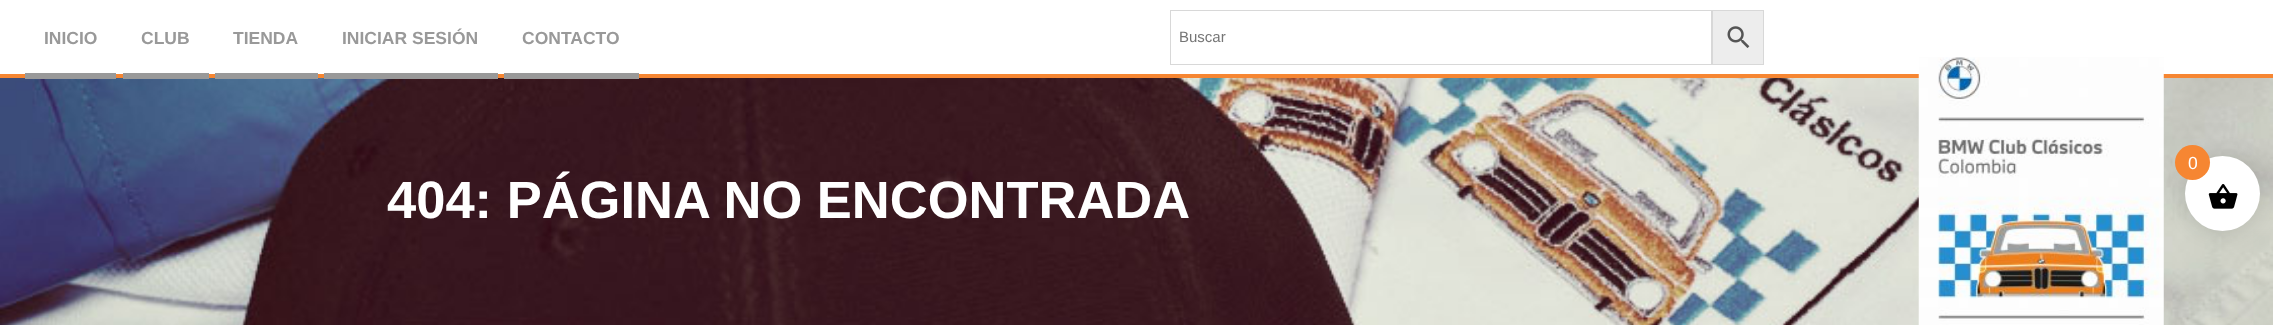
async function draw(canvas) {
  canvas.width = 2273;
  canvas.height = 331;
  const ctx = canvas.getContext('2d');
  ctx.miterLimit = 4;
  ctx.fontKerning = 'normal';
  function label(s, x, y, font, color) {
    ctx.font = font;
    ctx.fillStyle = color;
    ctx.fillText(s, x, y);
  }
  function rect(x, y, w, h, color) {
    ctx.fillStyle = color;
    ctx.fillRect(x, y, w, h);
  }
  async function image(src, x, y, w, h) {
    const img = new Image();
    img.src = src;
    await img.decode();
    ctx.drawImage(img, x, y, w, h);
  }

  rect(0, 0, 2273, 331, '#fff');
  rect(0, 74, 2273, 4, '#f68632');
  await image('assets/img3.png', 0, 78, 2273, 247);
  rect(25, 73, 91, 6, '#999');
  label('INICIO', 44, 44, 'bold 17.5px Liberation Sans', '#999');
  rect(123, 73, 86, 6, '#999');
  label('CLUB', 141, 44, 'bold 17.5px Liberation Sans', '#999');
  rect(215, 73, 103, 6, '#999');
  label('TIENDA', 233, 44, 'bold 17.5px Liberation Sans', '#999');
  rect(324, 73, 174, 6, '#999');
  label('INICIAR SESIÓN', 342, 44, 'bold 17.5px Liberation Sans', '#999');
  rect(504, 73, 135, 6, '#999');
  label('CONTACTO', 522, 44, 'bold 17.5px Liberation Sans', '#999');
  rect(1713, 11, 50, 53, '#ededed');
  ctx.strokeStyle = '#d8d8d8';
  ctx.strokeRect(1711.5, 10.5, 52, 54);
  ctx.strokeRect(1170.5, 10.5, 542, 54);
  label('Buscar', 1179, 42, '15px Liberation Sans', '#757575');
  await image('assets/img1.png', 1727, 26, 23, 22);
  await image('assets/img2.png', 1918, 57, 246, 268);
  label('404: PÁGINA NO ENCONTRADA', 387, 218, 'bold 52.5px Liberation Sans', '#fff');
  ctx.fillStyle = '#0000001a';
  ctx.filter = 'blur(9.5px)';
  ctx.beginPath();
  ctx.roundRect(2183, 154, 80, 80, 40);
  ctx.fill();
  ctx.filter = 'none';
  ctx.fillStyle = '#fff';
  ctx.beginPath();
  ctx.arc(2222.5, 193.5, 37.5, 0, 2 * Math.PI);
  ctx.fill();
  ctx.fillStyle = '#f68632';
  ctx.beginPath();
  ctx.arc(2192.5, 162.5, 17.5, 0, 2 * Math.PI);
  ctx.fill();
  label('0', 2188, 169, '17.5px Liberation Sans', '#fff');
  await image('assets/img4.png', 2208, 184, 30, 25);
}

draw(document.querySelector('canvas'));
